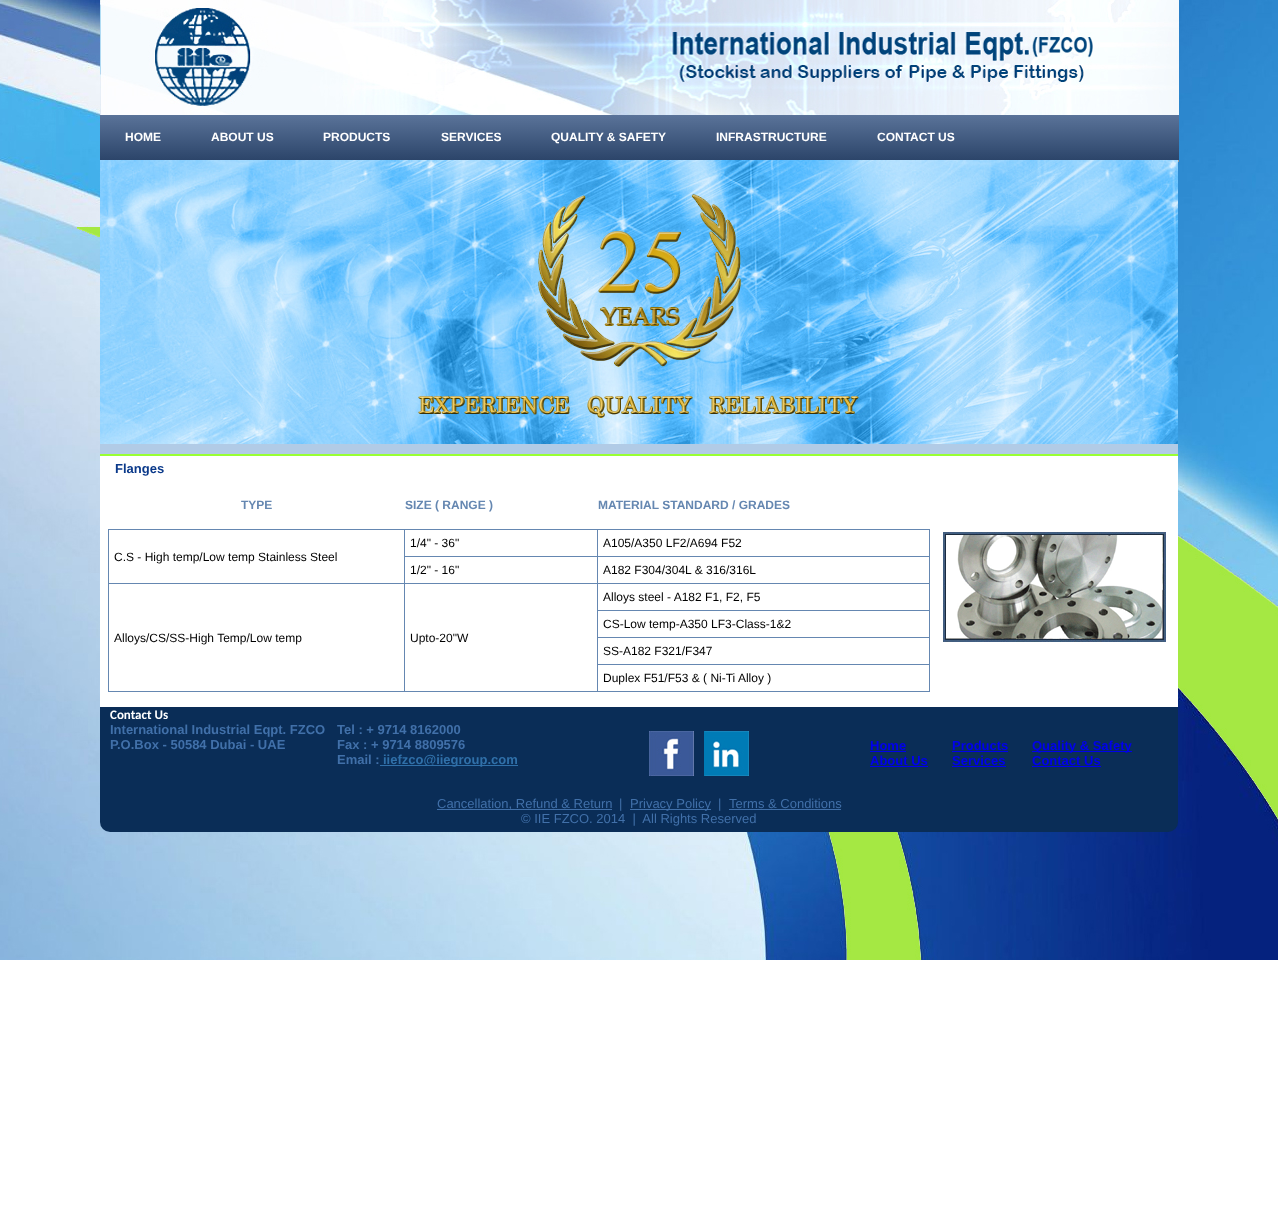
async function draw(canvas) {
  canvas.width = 1278;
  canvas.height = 1205;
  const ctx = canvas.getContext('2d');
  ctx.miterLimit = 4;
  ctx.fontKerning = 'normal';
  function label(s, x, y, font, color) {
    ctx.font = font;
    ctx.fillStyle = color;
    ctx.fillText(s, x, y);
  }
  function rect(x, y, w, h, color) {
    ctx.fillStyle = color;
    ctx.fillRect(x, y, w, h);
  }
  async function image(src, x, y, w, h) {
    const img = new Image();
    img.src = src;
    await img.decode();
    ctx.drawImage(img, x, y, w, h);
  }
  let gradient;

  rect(0, 0, 1278, 1205, '#fff');
  await image('assets/img1.png', 0, 0, 1278, 960);
  ctx.fillStyle = '#9c9c9c';
  ctx.filter = 'blur(0.5px)';
  ctx.beginPath();
  ctx.rect(100, 117, 1079, 45);
  ctx.fill();
  ctx.filter = 'none';
  await image('assets/img2.png', 100, 0, 1079, 115);
  gradient = ctx.createLinearGradient(640, 115, 640, 160);
  gradient.addColorStop(0, '#5a7399');
  gradient.addColorStop(1, '#2c456a');
  ctx.fillStyle = gradient;
  ctx.fillRect(100, 115, 1079, 45);
  label('HOME', 125, 141, 'bold 12px Liberation Sans', '#fff');
  label('ABOUT US', 211, 141, 'bold 12px Liberation Sans', '#fff');
  label('PRODUCTS', 323, 141, 'bold 12px Liberation Sans', '#fff');
  label('SERVICES', 441, 141, 'bold 12px Liberation Sans', '#fff');
  label('QUALITY & SAFETY', 551, 141, 'bold 12px Liberation Sans', '#fff');
  label('INFRASTRUCTURE', 716, 141, 'bold 12px Liberation Sans', '#fff');
  label('CONTACT US', 877, 141, 'bold 12px Liberation Sans', '#fff');
  rect(100, 444, 1078, 10, '#b1cbe6');
  await image('assets/img3.png', 100, 160, 1078, 284);
  rect(100, 454, 1078, 2, '#9f3');
  rect(100, 456, 1078, 251, '#fff');
  label('Flanges', 115, 473, 'bold 13px Liberation Sans', '#0a398a');
  rect(108, 529, 822, 1, '#6587b1');
  label('TYPE', 241, 509, 'bold 12px Liberation Sans', '#6587b1');
  label('SIZE ( RANGE )', 405, 509, 'bold 12px Liberation Sans', '#6587b1');
  label('MATERIAL STANDARD / GRADES', 598, 509, 'bold 12px Liberation Sans', '#6587b1');
  rect(597, 530, 1, 162, '#6587b1');
  rect(405, 556, 193, 1, '#6587b1');
  label('1/4" - 36"', 410, 547, '12px Liberation Sans', '#000');
  rect(929, 530, 1, 162, '#6587b1');
  rect(598, 556, 332, 1, '#6587b1');
  label('A105/A350 LF2/A694 F52', 603, 547, '12px Liberation Sans', '#000');
  rect(404, 530, 1, 162, '#6587b1');
  rect(108, 583, 297, 1, '#6587b1');
  rect(108, 530, 1, 54, '#6587b1');
  label('C.S - High temp/Low temp Stainless Steel', 114, 561, '12px Liberation Sans', '#000');
  rect(405, 583, 525, 1, '#6587b1');
  label('1/2" - 16"', 410, 574, '12px Liberation Sans', '#000');
  label('A182 F304/304L & 316/316L', 603, 574, '12px Liberation Sans', '#000');
  rect(598, 610, 332, 1, '#6587b1');
  label('Alloys steel - A182 F1, F2, F5', 603, 601, '12px Liberation Sans', '#000');
  rect(108, 691, 822, 1, '#6587b1');
  rect(108, 584, 1, 108, '#6587b1');
  label('Alloys/CS/SS-High Temp/Low temp', 114, 642, '12px Liberation Sans', '#000');
  label('Upto-20"W', 410, 642, '12px Liberation Sans', '#000');
  rect(598, 637, 332, 1, '#6587b1');
  label('CS-Low temp-A350 LF3-Class-1&2', 603, 628, '12px Liberation Sans', '#000');
  rect(598, 664, 332, 1, '#6587b1');
  label('SS-A182 F321/F347', 603, 655, '12px Liberation Sans', '#000');
  label('Duplex F51/F53 & ( Ni-Ti Alloy )', 603, 682, '12px Liberation Sans', '#000');
  await image('assets/img4.png', 943, 532, 223, 110);
  ctx.fillStyle = '#0a2d57';
  ctx.beginPath();
  ctx.roundRect(100, 707, 1078, 125, [0, 0, 10, 10]);
  ctx.fill();
  label('Contact Us', 110, 719, 'bold 13px Carlito', '#fff');
  label('International Industrial Eqpt. FZCO', 110, 734, 'bold 13px Liberation Sans', '#4170a9');
  label('P.O.Box - 50584 Dubai - UAE', 110, 749, 'bold 13px Liberation Sans', '#4170a9');
  label('Tel : + 9714 8162000', 337, 734, 'bold 13px Liberation Sans', '#4170a9');
  label('Fax : + 9714 8809576', 337, 749, 'bold 13px Liberation Sans', '#4170a9');
  label('Email :', 337, 764, 'bold 13px Liberation Sans', '#4170a9');
  rect(380, 765, 138, 1, '#3070a9');
  label('iiefzco@iiegroup.com', 383, 764, 'bold 13px Liberation Sans', '#3070a9');
  await image('assets/img5.png', 649, 731, 45, 45);
  await image('assets/img6.png', 704, 731, 45, 45);
  label('Home', 870, 750, 'bold 13px Liberation Sans', '#00e');
  rect(870, 751, 36, 1, '#00e');
  label('Products', 952, 750, 'bold 13px Liberation Sans', '#00e');
  rect(952, 751, 56, 1, '#00e');
  rect(1032, 751, 100, 1, '#00e');
  label('Quality & Safety', 1032, 750, 'bold 13px Liberation Sans', '#00e');
  label('About Us', 870, 765, 'bold 13px Liberation Sans', '#00e');
  rect(870, 766, 58, 1, '#00e');
  label('Services', 952, 765, 'bold 13px Liberation Sans', '#00e');
  rect(952, 766, 54, 1, '#00e');
  label('Contact Us', 1032, 765, 'bold 13px Liberation Sans', '#00e');
  rect(1032, 766, 69, 1, '#00e');
  rect(437, 809, 175, 1, '#4170a9');
  label('Cancellation, Refund & Return', 437, 808, '13px Liberation Sans', '#4170a9');
  label('|', 619, 808, '13px Liberation Sans', '#4170a9');
  rect(630, 809, 81, 1, '#4170a9');
  label('Privacy Policy', 630, 808, '13px Liberation Sans', '#4170a9');
  label('|', 718, 808, '13px Liberation Sans', '#4170a9');
  label('Terms & Conditions', 729, 808, '13px Liberation Sans', '#4170a9');
  rect(729, 809, 112, 1, '#4170a9');
  label('© IIE FZCO. 2014  |  All Rights Reserved', 521, 823, '13px Liberation Sans', '#4170a9');
}

draw(document.querySelector('canvas'));
